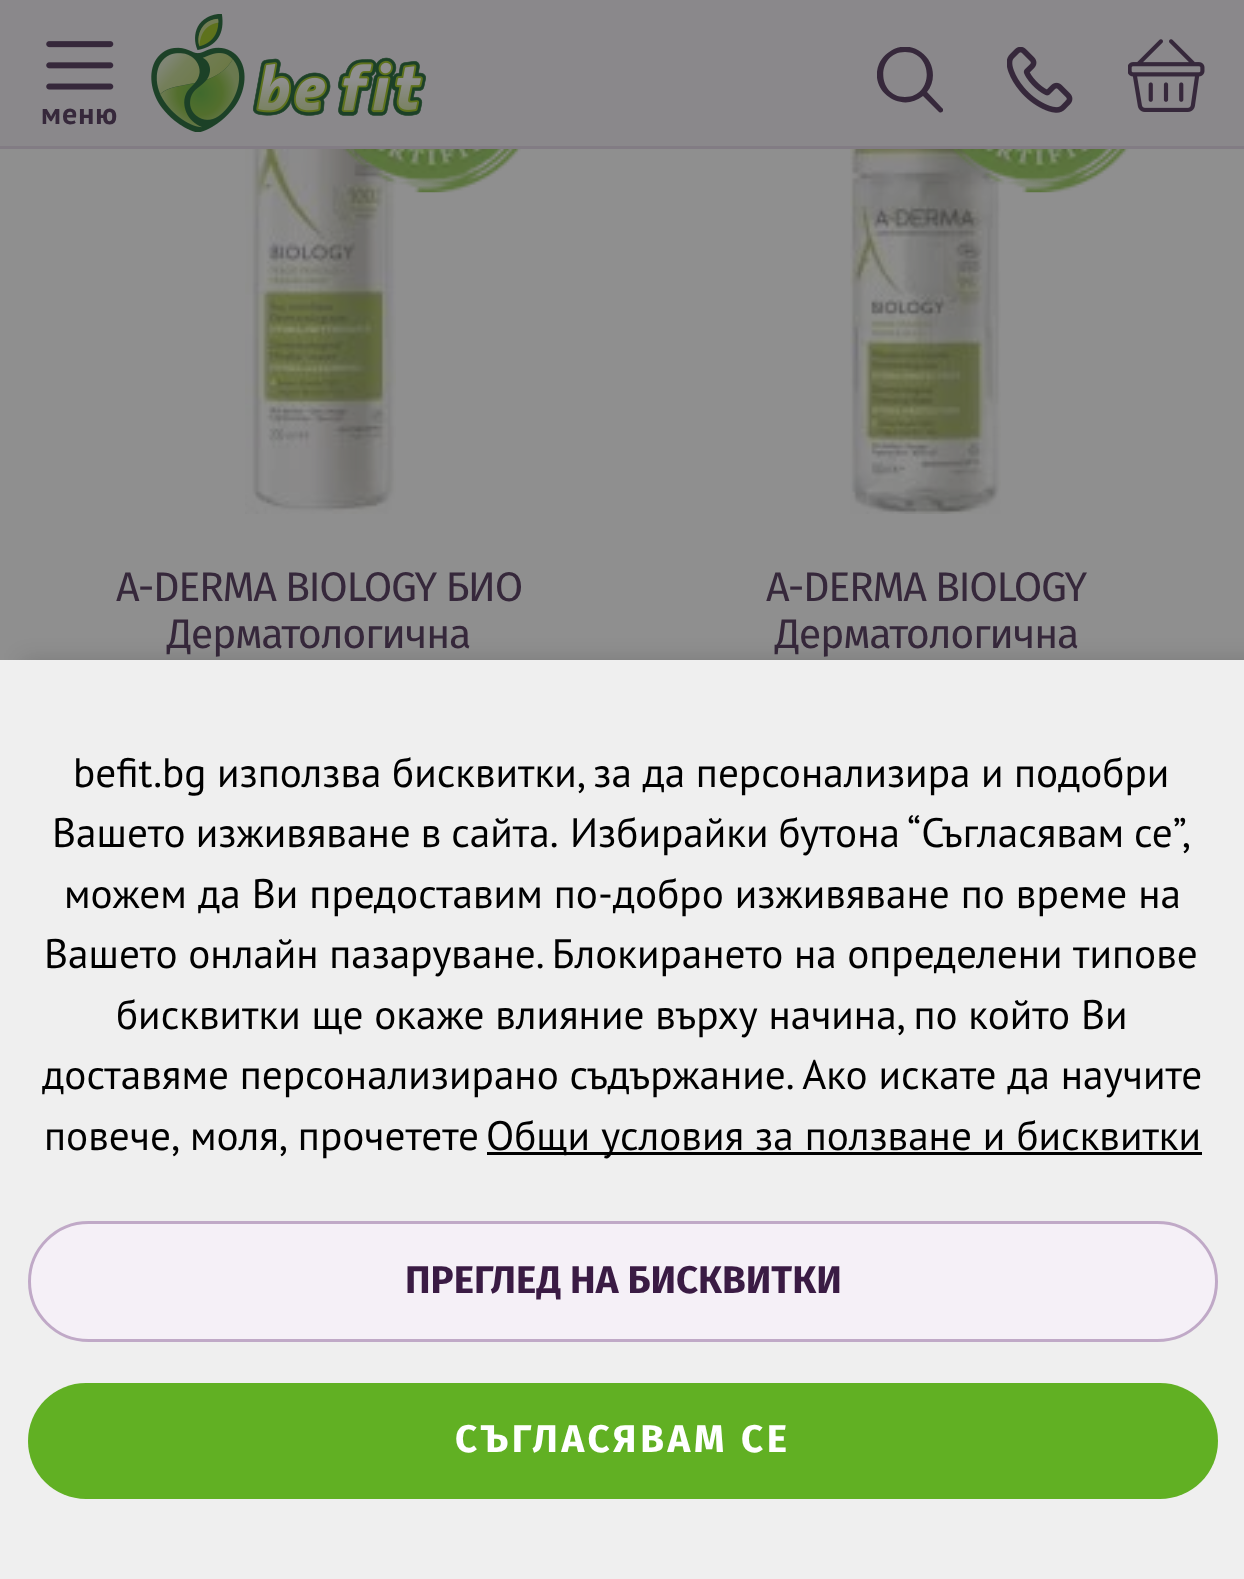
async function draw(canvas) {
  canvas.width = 1244;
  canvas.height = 1579;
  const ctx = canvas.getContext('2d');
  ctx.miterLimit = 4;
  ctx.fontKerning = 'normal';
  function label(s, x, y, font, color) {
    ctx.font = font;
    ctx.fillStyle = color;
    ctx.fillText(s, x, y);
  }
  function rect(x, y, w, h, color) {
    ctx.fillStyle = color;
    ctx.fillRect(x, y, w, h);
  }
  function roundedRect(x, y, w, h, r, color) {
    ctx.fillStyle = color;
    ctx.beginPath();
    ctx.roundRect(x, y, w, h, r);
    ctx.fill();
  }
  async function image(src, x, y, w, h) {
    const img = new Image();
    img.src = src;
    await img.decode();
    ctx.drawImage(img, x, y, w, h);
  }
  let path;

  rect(0, 0, 1244, 1579, '#8f8f8f');
  rect(0, 146, 1244, 3, '#827c84');
  rect(0, 0, 1244, 146, '#8a888b');
  await image('assets/img1.png', 151, 14, 275, 118);
  ctx.save();
  ctx.beginPath();
  ctx.rect(877, 47, 66, 66);
  ctx.clip();
  ctx.fillStyle = '#36283b';
  path = new Path2D('M942 108L927 92C937 80 934 61 921 52C913 46 903 45 894 49C888 52 882 57 879 64C868 91 901 114 923 96L939 112C942 114 945 110 942 108ZM905 97C876 97 876 52 905 52C934 52 934 97 905 97Z');
  ctx.fill(path);
  ctx.restore();
  await image('assets/img2.png', 1007, 47, 66, 66);
  await image('assets/img3.png', 1128, 39, 77, 73);
  await image('assets/img4.png', 46, 41, 68, 49);
  ctx.letterSpacing = '1px';
  label('меню', 41, 124, 'bold 30px PT Sans', '#36283b');
  await image('assets/img5.png', 245, 149, 151, 365);
  await image('assets/img6.png', 343, 149, 178, 44);
  ctx.letterSpacing = '-1.4px';
  label('A-DERMA BIOLOGY БИО', 116, 601, '41.25px Fira Sans', '#36283b');
  label('Дерматологична', 167, 648, '41.25px Fira Sans', '#36283b');
  await image('assets/img7.png', 850, 149, 151, 365);
  await image('assets/img8.png', 950, 149, 179, 44);
  label('A-DERMA BIOLOGY', 766, 601, '41.25px Fira Sans', '#36283b');
  label('Дерматологична', 775, 648, '41.25px Fira Sans', '#36283b');
  ctx.fillStyle = '#00000026';
  ctx.filter = 'blur(11px)';
  ctx.beginPath();
  ctx.rect(22, 660, 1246, 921);
  ctx.fill();
  ctx.filter = 'none';
  rect(0, 660, 1244, 919, '#efefef');
  ctx.letterSpacing = '0px';
  ctx.wordSpacing = '-0.5px';
  label('befit.bg използва бисквитки, за да персонализира и подобри', 73, 787, '41.25px PT Sans', '#000');
  ctx.wordSpacing = '-1px';
  label('Вашето изживяване в сайта.', 52, 847, '41.25px PT Sans', '#000');
  label('Избирайки бутона “Съгласявам се”,', 570, 847, '41.25px PT Sans', '#000');
  ctx.wordSpacing = '0px';
  label('можем да Ви предоставим по-добро изживяване по време на', 64, 908, '41.25px PT Sans', '#000');
  ctx.wordSpacing = '-0.5px';
  label('Вашето онлайн пазаруване. Блокирането на определени типове', 44, 968, '41.25px PT Sans', '#000');
  ctx.wordSpacing = '-0.25px';
  label('бисквитки ще окаже влияние върху начина, по който Ви', 116, 1029, '41.25px PT Sans', '#000');
  label('доставяме персонализирано съдържание. Ако искате да научите', 42, 1089, '41.25px PT Sans', '#000');
  ctx.wordSpacing = '2px';
  label('повече, моля, прочетете', 44, 1150, '41.25px PT Sans', '#000');
  rect(487, 1152, 715, 3, '#000');
  ctx.wordSpacing = '0px';
  label('Общи условия за ползване и бисквитки', 486, 1150, '41.25px PT Sans', '#000');
  ctx.fillStyle = '#f5f0f7';
  ctx.beginPath();
  ctx.roundRect(29.5, 1222.5, 1187, 118, 59);
  ctx.fill();
  ctx.strokeStyle = '#c0a9c7';
  ctx.lineWidth = 3;
  ctx.stroke();
  label('ПРЕГЛЕД НА БИСКВИТКИ', 405, 1293, 'bold 38.5px Fira Sans', '#3a1b44');
  roundedRect(28, 1383, 1190, 116, 58, '#61b023');
  ctx.letterSpacing = '3.75px';
  label('СЪГЛАСЯВАМ СЕ', 455, 1452, 'bold 38.5px Fira Sans', '#fff');
}

draw(document.querySelector('canvas'));
